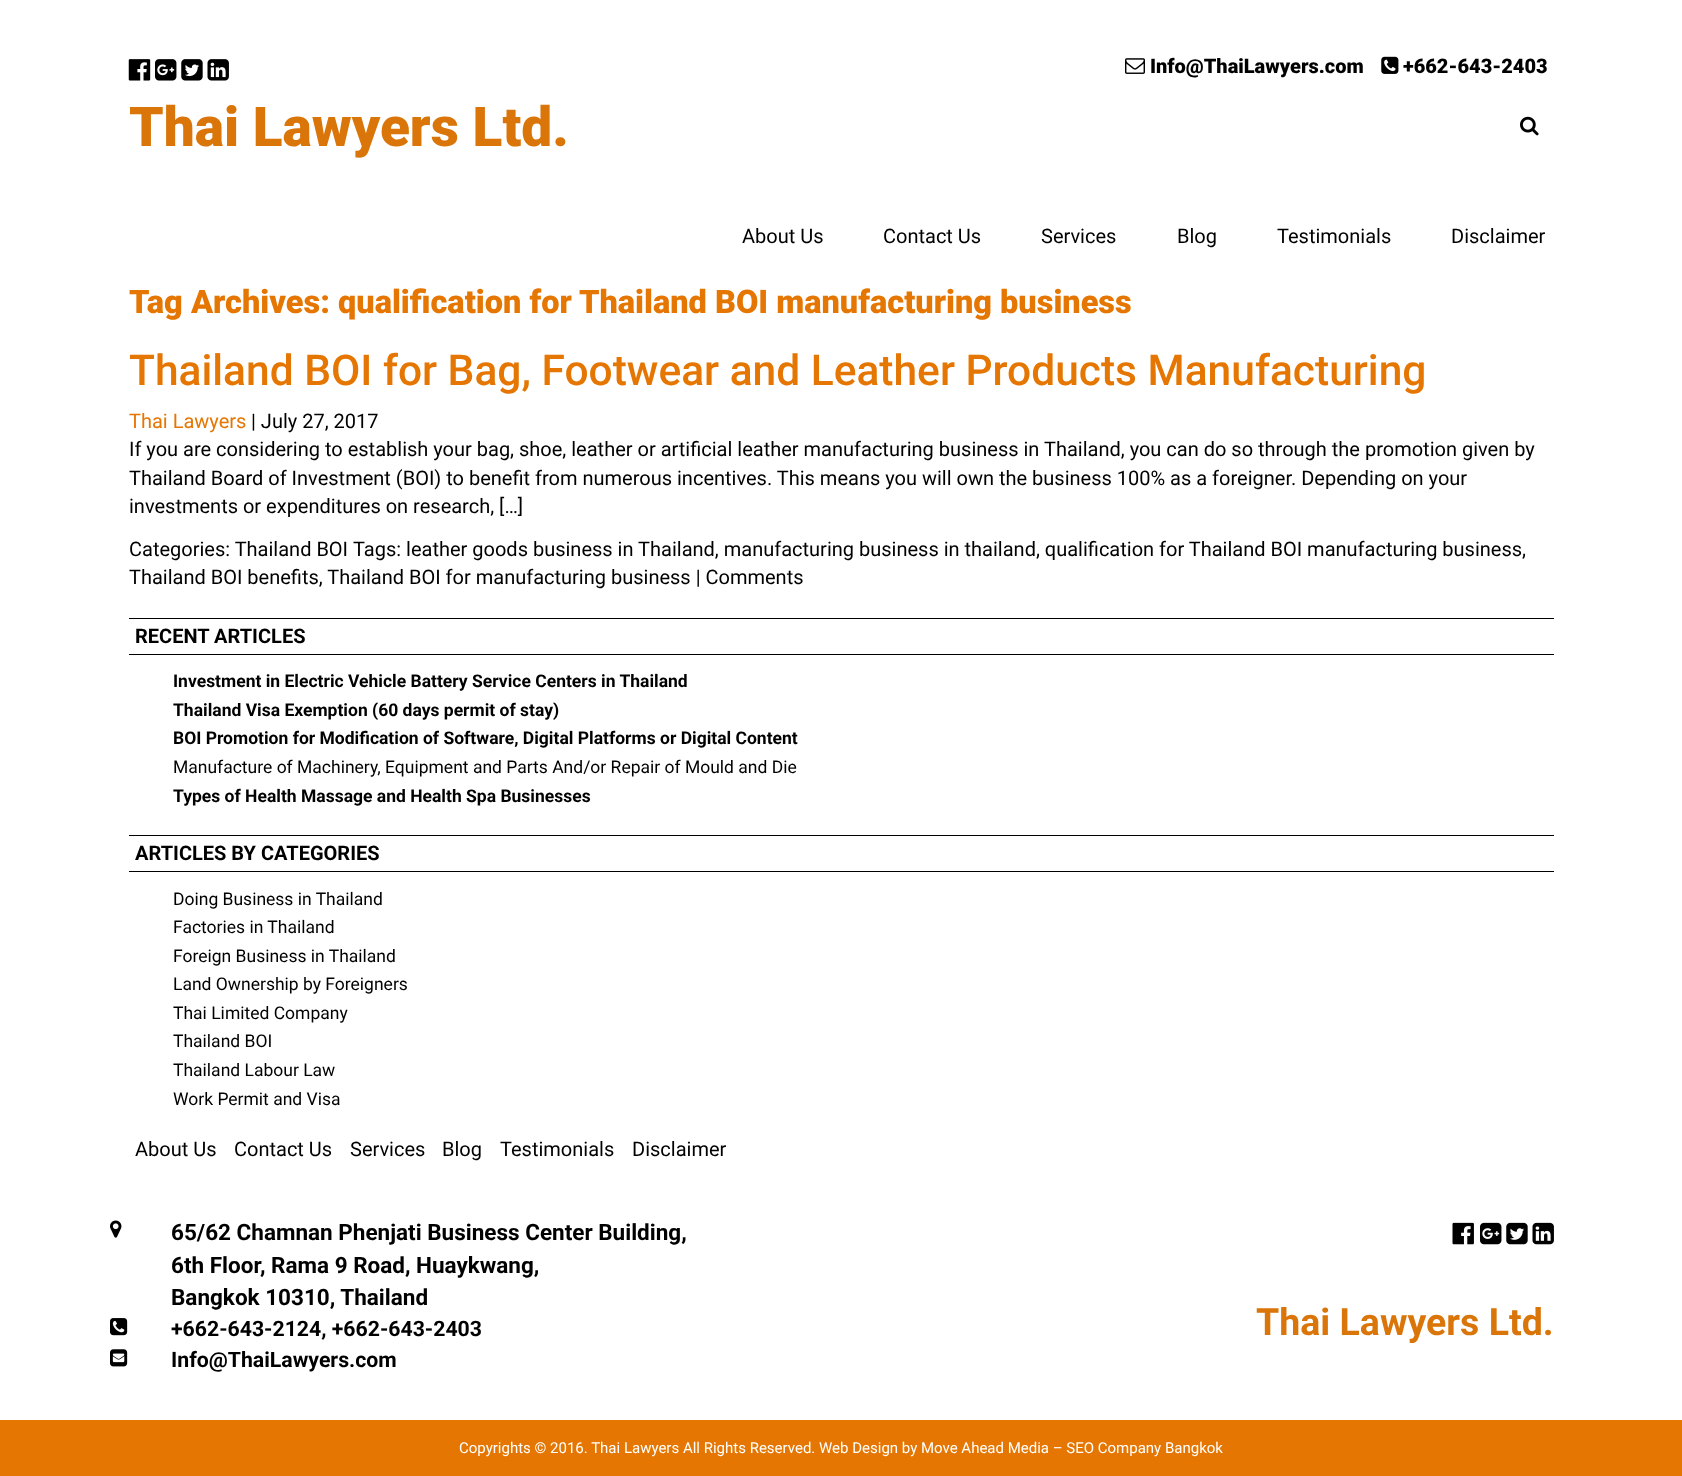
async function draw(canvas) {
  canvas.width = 1682;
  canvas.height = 1476;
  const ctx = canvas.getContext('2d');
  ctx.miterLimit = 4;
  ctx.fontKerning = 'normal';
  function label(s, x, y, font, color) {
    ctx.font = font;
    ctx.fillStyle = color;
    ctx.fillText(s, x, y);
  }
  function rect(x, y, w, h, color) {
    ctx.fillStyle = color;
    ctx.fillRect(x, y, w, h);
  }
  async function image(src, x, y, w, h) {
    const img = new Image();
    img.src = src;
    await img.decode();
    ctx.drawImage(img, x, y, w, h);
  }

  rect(0, 0, 1682, 1476, '#fff');
  await image('assets/img1.png', 1125, 58, 20, 16);
  label('Info@ThaiLawyers.com', 1150, 73, '900 20px Roboto', '#000');
  await image('assets/img2.png', 1381, 56, 18, 18);
  label('+662-643-2403', 1403, 73, '900 20px Roboto', '#000');
  await image('assets/img3.png', 1520, 116, 19, 20);
  await image('assets/img4.png', 128, 59, 23, 22);
  await image('assets/img5.png', 155, 59, 22, 22);
  await image('assets/img6.png', 181, 59, 22, 22);
  await image('assets/img7.png', 207, 59, 22, 22);
  label('Thai Lawyers Ltd.', 129, 146, '900 55px Roboto', '#da7509');
  label('About Us', 742, 243, '20px Roboto', '#000');
  label('Contact Us', 883, 243, '20px Roboto', '#000');
  label('Services', 1041, 243, '20px Roboto', '#000');
  label('Blog', 1177, 243, '20px Roboto', '#000');
  label('Testimonials', 1277, 243, '20px Roboto', '#000');
  label('Disclaimer', 1451, 243, '20px Roboto', '#000');
  label('Tag Archives: qualification for Thailand BOI manufacturing business', 129, 313, '900 32.5px Roboto', '#e57602');
  label('Thailand BOI for Bag, Footwear and Leather Products Manufacturing', 129, 385, '500 42.5px Roboto', '#e57602');
  label('Thai Lawyers', 129, 428, '20px Roboto', '#e57602');
  label('| July 27, 2017', 251, 428, '20px Roboto', '#000');
  label('If you are considering to establish your bag, shoe, leather or artificial leather manufacturing business in Thailand, you can do so through the promotion given by', 129, 456, '20px Roboto', '#000');
  label('Thailand Board of Investment (BOI) to benefit from numerous incentives. This means you will own the business 100% as a foreigner. Depending on your', 129, 485, '20px Roboto', '#000');
  label('investments or expenditures on research, […]', 129, 513, '20px Roboto', '#000');
  label('Tags: leather goods business in Thailand, manufacturing business in thailand, qualification for Thailand BOI manufacturing business,', 353, 556, '20px Roboto', '#000');
  label('Thailand BOI benefits, Thailand BOI for manufacturing business | Comments', 129, 584, '20px Roboto', '#000');
  label('Categories: Thailand BOI', 129, 556, '20px Roboto', '#000');
  rect(129, 618, 1425, 1, '#000');
  rect(129, 654, 1425, 1, '#000');
  label('RECENT ARTICLES', 135, 643, 'bold 20px Roboto', '#000');
  label('Investment in Electric Vehicle Battery Service Centers in Thailand', 173, 687, 'bold 17.5px Roboto', '#000');
  label('Thailand Visa Exemption (60 days permit of stay)', 173, 716, 'bold 17.5px Roboto', '#000');
  label('BOI Promotion for Modification of Software, Digital Platforms or Digital Content', 173, 744, 'bold 17.5px Roboto', '#000');
  label('Manufacture of Machinery, Equipment and Parts And/or Repair of Mould and Die', 173, 773, '17.5px Roboto', '#000');
  label('Types of Health Massage and Health Spa Businesses', 173, 802, 'bold 17.5px Roboto', '#000');
  rect(129, 835, 1425, 1, '#000');
  rect(129, 871, 1425, 1, '#000');
  label('ARTICLES BY CATEGORIES', 135, 860, 'bold 20px Roboto', '#000');
  label('Doing Business in Thailand', 173, 905, '17.5px Roboto', '#000');
  label('Factories in Thailand', 173, 933, '17.5px Roboto', '#000');
  label('Foreign Business in Thailand', 173, 962, '17.5px Roboto', '#000');
  label('Land Ownership by Foreigners', 173, 990, '17.5px Roboto', '#000');
  label('Thai Limited Company', 173, 1019, '17.5px Roboto', '#000');
  label('Thailand BOI', 173, 1047, '17.5px Roboto', '#000');
  label('Thailand Labour Law', 173, 1076, '17.5px Roboto', '#000');
  label('Work Permit and Visa', 173, 1105, '17.5px Roboto', '#000');
  label('About Us', 135, 1156, '20px Roboto', '#000');
  label('Contact Us', 234, 1156, '20px Roboto', '#000');
  label('Services', 350, 1156, '20px Roboto', '#000');
  label('Blog', 442, 1156, '20px Roboto', '#000');
  label('Testimonials', 500, 1156, '20px Roboto', '#000');
  label('Disclaimer', 632, 1156, '20px Roboto', '#000');
  await image('assets/img8.png', 110, 1220, 12, 18);
  label('65/62 Chamnan Phenjati Business Center Building,', 171, 1240, 'bold 22.5px Roboto', '#000');
  label('6th Floor, Rama 9 Road, Huaykwang,', 171, 1273, 'bold 22.5px Roboto', '#000');
  label('Bangkok 10310, Thailand', 171, 1305, 'bold 22.5px Roboto', '#000');
  await image('assets/img9.png', 110, 1318, 18, 18);
  label('+662-643-2124, +662-643-2403', 171, 1336, 'bold 21.25px Roboto', '#000');
  await image('assets/img10.png', 110, 1349, 18, 18);
  label('Info@ThaiLawyers.com', 171, 1367, 'bold 21.25px Roboto', '#000');
  await image('assets/img11.png', 1452, 1222, 22, 23);
  await image('assets/img12.png', 1480, 1222, 22, 23);
  await image('assets/img13.png', 1506, 1222, 22, 23);
  await image('assets/img14.png', 1532, 1222, 22, 23);
  label('Thai Lawyers Ltd.', 1256, 1335, 'bold 37.5px Roboto', '#da7509');
  rect(0, 1420, 1682, 56, '#e57602');
  label('Copyrights © 2016. Thai Lawyers All Rights Reserved. Web Design by Move Ahead Media – SEO Company Bangkok', 459, 1453, '15px Roboto', '#fff');
}

draw(document.querySelector('canvas'));
